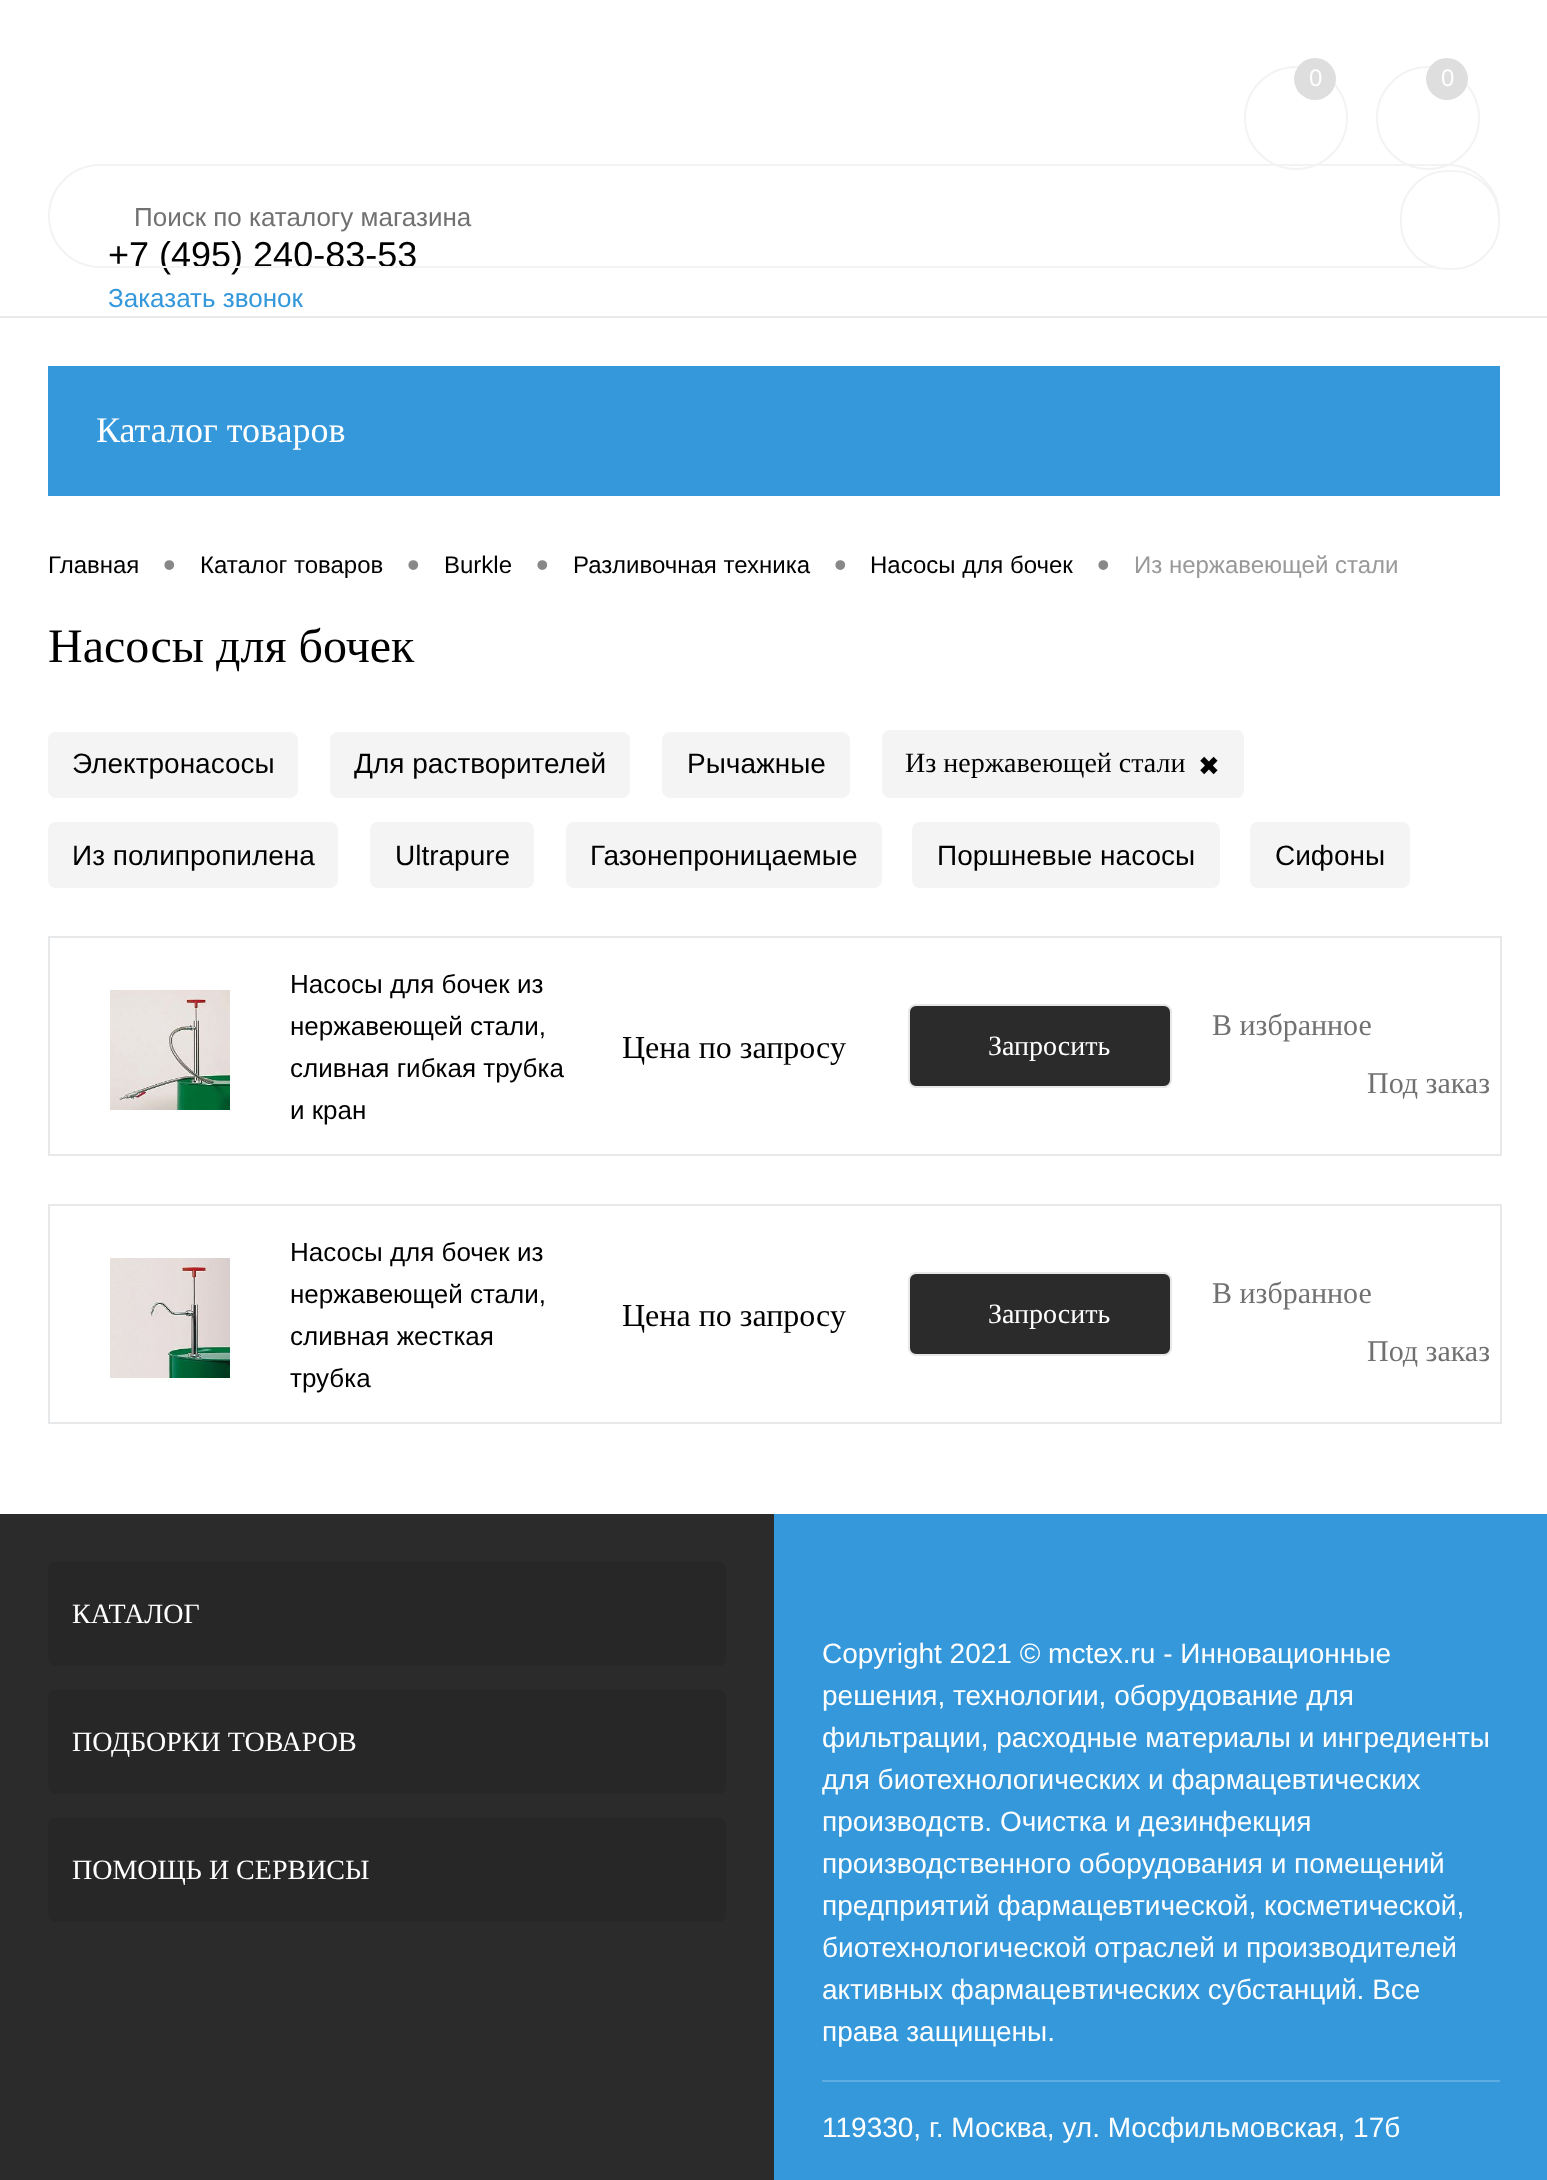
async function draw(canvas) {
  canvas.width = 1547;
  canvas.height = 2180;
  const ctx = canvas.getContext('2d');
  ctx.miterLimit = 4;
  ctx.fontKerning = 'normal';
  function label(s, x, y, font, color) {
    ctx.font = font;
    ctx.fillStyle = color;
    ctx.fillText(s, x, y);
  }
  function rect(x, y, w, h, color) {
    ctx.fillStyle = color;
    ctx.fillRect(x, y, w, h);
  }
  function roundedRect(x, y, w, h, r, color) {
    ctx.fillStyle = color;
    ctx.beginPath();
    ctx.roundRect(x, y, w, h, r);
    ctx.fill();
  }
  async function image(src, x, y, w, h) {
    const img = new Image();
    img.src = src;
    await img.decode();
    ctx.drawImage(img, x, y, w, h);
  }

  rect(0, 0, 1547, 2180, '#fff');
  rect(0, 316, 1547, 2, '#eaeaea');
  label('+7 (495) 240-83-53', 108, 267, '36px Liberation Sans', '#000');
  ctx.beginPath();
  ctx.roundRect(49, 165, 1450, 102, 51);
  ctx.strokeStyle = '#f3f3f3';
  ctx.lineWidth = 2;
  ctx.stroke();
  ctx.beginPath();
  ctx.arc(1296, 118, 51, 0, 2 * Math.PI);
  ctx.stroke();
  ctx.fillStyle = '#dedede';
  ctx.beginPath();
  ctx.arc(1315, 79, 21, 0, 2 * Math.PI);
  ctx.fill();
  label('0', 1309, 86, '24px Liberation Sans', '#fff');
  ctx.beginPath();
  ctx.arc(1428, 118, 51, 0, 2 * Math.PI);
  ctx.stroke();
  ctx.fillStyle = '#dedede';
  ctx.beginPath();
  ctx.arc(1447, 79, 21, 0, 2 * Math.PI);
  ctx.fill();
  label('0', 1441, 86, '24px Liberation Sans', '#fff');
  ctx.beginPath();
  ctx.roundRect(1401, 171, 98, 98, 47);
  ctx.fill();
  ctx.stroke();
  label('Поиск по каталогу магазина', 134, 226, '26px Liberation Sans', '#717171');
  label('Заказать звонок', 108, 307, '26px Liberation Sans', '#3498db');
  rect(48, 366, 1452, 130, '#3498db');
  label('Каталог товаров', 96, 442, '36px Liberation Serif', '#fff');
  label('Главная', 48, 573, '24px Liberation Sans', '#000');
  label('•', 163, 577, '36px Liberation Sans', '#888');
  label('Каталог товаров', 200, 573, '24px Liberation Sans', '#000');
  label('•', 407, 577, '36px Liberation Sans', '#888');
  label('Burkle', 444, 573, '24px Liberation Sans', '#000');
  label('•', 536, 577, '36px Liberation Sans', '#888');
  label('Разливочная техника', 573, 573, '24px Liberation Sans', '#000');
  label('•', 834, 577, '36px Liberation Sans', '#888');
  label('Насосы для бочек', 870, 573, '24px Liberation Sans', '#000');
  label('•', 1097, 577, '36px Liberation Sans', '#888');
  label('Из нержавеющей стали', 1134, 573, '24px Liberation Sans', '#999');
  label('Насосы для бочек', 48, 662, '48px Liberation Serif', '#000');
  roundedRect(48, 732, 250, 66, 8, '#f4f4f4');
  label('Электронасосы', 72, 773, '28px Liberation Sans', '#000');
  roundedRect(330, 732, 300, 66, 8, '#f4f4f4');
  label('Для растворителей', 354, 773, '28px Liberation Sans', '#000');
  roundedRect(662, 732, 188, 66, 8, '#f4f4f4');
  label('Рычажные', 687, 773, '28px Liberation Sans', '#000');
  roundedRect(882, 730, 362, 68, 8, '#f4f4f4');
  label('Из нержавеющей стали', 905, 772, '28px Liberation Serif', '#000');
  label('✖', 1198, 775, '26px DejaVu Sans', '#000');
  roundedRect(48, 822, 290, 66, 8, '#f4f4f4');
  label('Из полипропилена', 72, 865, '28px Liberation Sans', '#000');
  roundedRect(370, 822, 164, 66, 8, '#f4f4f4');
  label('Ultrapure', 395, 865, '28px Liberation Sans', '#000');
  roundedRect(566, 822, 316, 66, 8, '#f4f4f4');
  label('Газонепроницаемые', 590, 865, '28px Liberation Sans', '#000');
  roundedRect(912, 822, 308, 66, 8, '#f4f4f4');
  label('Поршневые насосы', 937, 865, '28px Liberation Sans', '#000');
  roundedRect(1250, 822, 160, 66, 8, '#f4f4f4');
  label('Сифоны', 1275, 865, '28px Liberation Sans', '#000');
  rect(48, 936, 1454, 2, '#e7e8ea');
  rect(1500, 936, 2, 220, '#e7e8ea');
  rect(48, 1154, 1454, 2, '#e7e8ea');
  rect(48, 936, 2, 220, '#e7e8ea');
  await image('assets/img1.png', 110, 990, 120, 120);
  label('Насосы для бочек из', 290, 993, '26px Liberation Sans', '#000');
  label('нержавеющей стали,', 290, 1035, '26px Liberation Sans', '#000');
  label('сливная гибкая трубка', 290, 1077, '26px Liberation Sans', '#000');
  label('и кран', 290, 1119, '26px Liberation Sans', '#000');
  label('Цена по запросу', 622, 1058, '32px Liberation Serif', '#000');
  ctx.fillStyle = '#2b2b2b';
  ctx.beginPath();
  ctx.roundRect(909, 1005, 262, 82, 7);
  ctx.fill();
  ctx.strokeStyle = '#e7e8ea';
  ctx.stroke();
  label('Запросить', 988, 1055, '28px Liberation Serif', '#fff');
  label('В избранное', 1212, 1035, '30px Liberation Serif', '#717171');
  label('Под заказ', 1367, 1093, '30px Liberation Serif', '#717171');
  rect(48, 1204, 1454, 2, '#e7e8ea');
  rect(1500, 1204, 2, 220, '#e7e8ea');
  rect(48, 1422, 1454, 2, '#e7e8ea');
  rect(48, 1204, 2, 220, '#e7e8ea');
  await image('assets/img2.png', 110, 1258, 120, 120);
  label('Насосы для бочек из', 290, 1261, '26px Liberation Sans', '#000');
  label('нержавеющей стали,', 290, 1303, '26px Liberation Sans', '#000');
  label('сливная жесткая', 290, 1345, '26px Liberation Sans', '#000');
  label('трубка', 290, 1387, '26px Liberation Sans', '#000');
  label('Цена по запросу', 622, 1326, '32px Liberation Serif', '#000');
  ctx.fillStyle = '#2b2b2b';
  ctx.beginPath();
  ctx.roundRect(909, 1273, 262, 82, 7);
  ctx.fill();
  ctx.stroke();
  label('Запросить', 988, 1323, '28px Liberation Serif', '#fff');
  label('В избранное', 1212, 1303, '30px Liberation Serif', '#717171');
  label('Под заказ', 1367, 1361, '30px Liberation Serif', '#717171');
  rect(0, 1514, 774, 666, '#2b2b2b');
  roundedRect(48, 1562, 678, 104, 8, '#272727');
  label('КАТАЛОГ', 72, 1623, '28px Liberation Serif', '#fff');
  roundedRect(48, 1690, 678, 104, 8, '#272727');
  label('ПОДБОРКИ ТОВАРОВ', 72, 1751, '28px Liberation Serif', '#fff');
  roundedRect(48, 1818, 678, 104, 8, '#272727');
  label('ПОМОЩЬ И СЕРВИСЫ', 72, 1879, '28px Liberation Serif', '#fff');
  rect(774, 1514, 773, 666, '#3498db');
  label('Copyright 2021 © mctex.ru - Инновационные', 822, 1663, '28px Liberation Sans', '#fff');
  label('решения, технологии, оборудование для', 822, 1705, '28px Liberation Sans', '#fff');
  label('фильтрации, расходные материалы и ингредиенты', 822, 1747, '28px Liberation Sans', '#fff');
  label('для биотехнологических и фармацевтических', 822, 1789, '28px Liberation Sans', '#fff');
  label('производств. Очистка и дезинфекция', 822, 1831, '28px Liberation Sans', '#fff');
  label('производственного оборудования и помещений', 822, 1873, '28px Liberation Sans', '#fff');
  label('предприятий фармацевтической, косметической,', 822, 1915, '28px Liberation Sans', '#fff');
  label('биотехнологической отраслей и производителей', 822, 1957, '28px Liberation Sans', '#fff');
  label('активных фармацевтических субстанций. Все', 822, 1999, '28px Liberation Sans', '#fff');
  label('права защищены.', 822, 2041, '28px Liberation Sans', '#fff');
  rect(822, 2080, 678, 2, '#5dade2');
  label('119330, г. Москва, ул. Мосфильмовская, 17б', 822, 2137, '28px Liberation Sans', '#fff');
}

draw(document.querySelector('canvas'));
